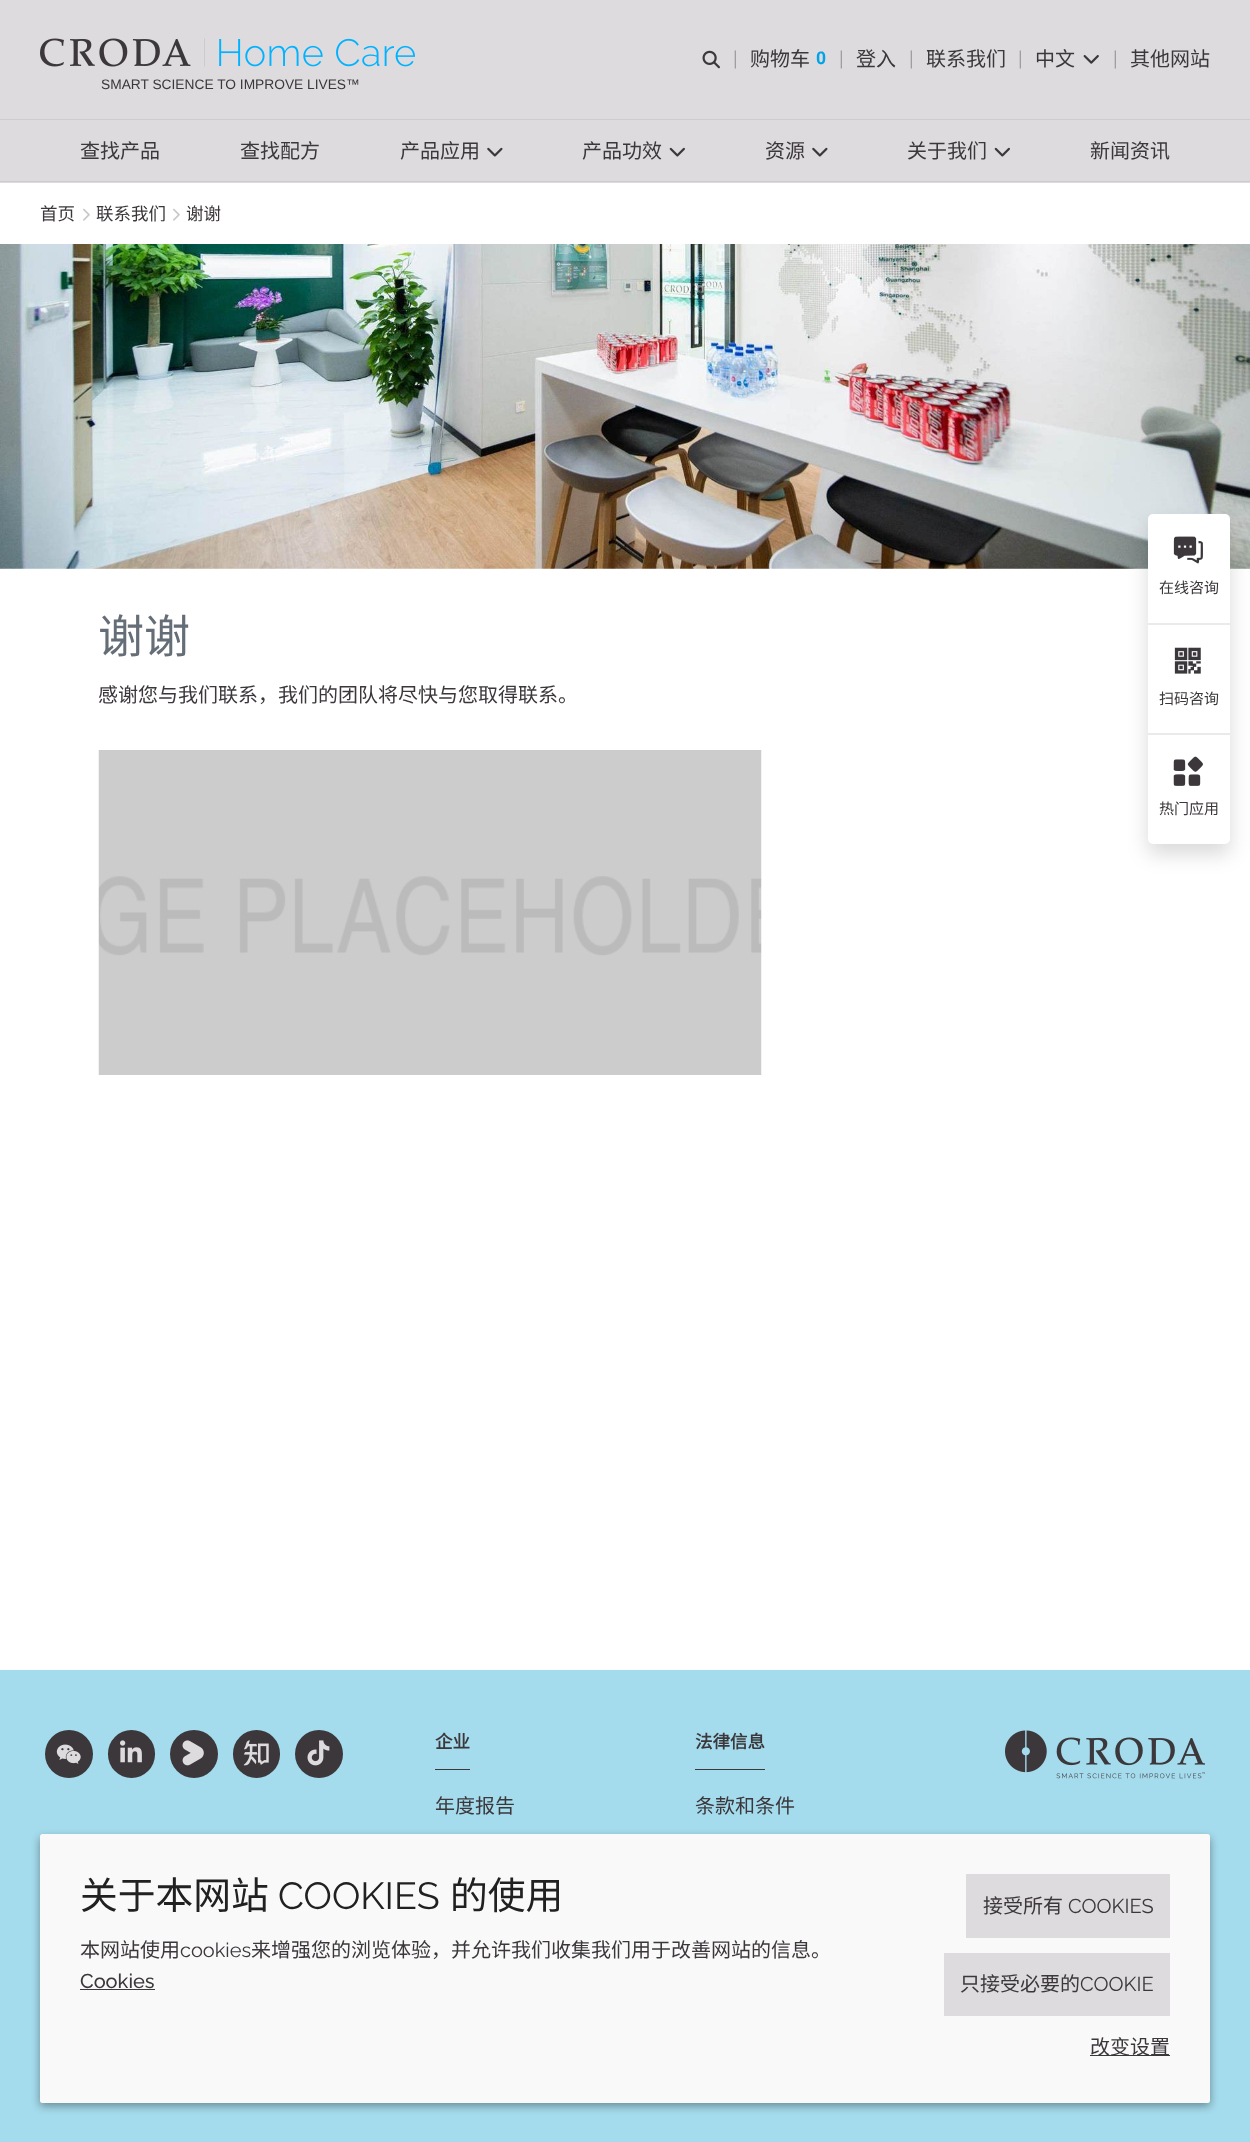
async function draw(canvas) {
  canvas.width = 1250;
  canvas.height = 2142;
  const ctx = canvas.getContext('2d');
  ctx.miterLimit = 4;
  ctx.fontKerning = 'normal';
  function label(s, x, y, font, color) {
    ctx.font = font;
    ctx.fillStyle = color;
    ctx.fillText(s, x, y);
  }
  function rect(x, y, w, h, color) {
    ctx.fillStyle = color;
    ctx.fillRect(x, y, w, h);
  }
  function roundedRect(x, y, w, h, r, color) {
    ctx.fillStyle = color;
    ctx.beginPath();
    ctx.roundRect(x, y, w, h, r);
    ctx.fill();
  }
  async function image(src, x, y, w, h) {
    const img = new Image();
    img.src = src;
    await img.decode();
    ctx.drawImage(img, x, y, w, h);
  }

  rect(0, 0, 1250, 2142, '#fff');
  rect(0, 0, 1250, 183, '#dddbde');
  await image('assets/img1.png', 702, 50, 18, 19);
  label('|', 733, 66, '20px Raleway', '#9c999d');
  label('购物车', 750, 66, '20px Noto Sans CJK SC', '#3b373b');
  label('0', 816, 64, 'bold 17.5px Roboto', '#00a4e6');
  label('|', 839, 66, '20px Raleway', '#9c999d');
  label('登入', 856, 66, '20px Noto Sans CJK SC', '#3b373b');
  label('|', 909, 66, '20px Raleway', '#9c999d');
  label('联系我们', 926, 66, '20px Noto Sans CJK SC', '#3b373b');
  label('|', 1018, 66, '20px Raleway', '#9c999d');
  label('中文', 1035, 66, '20px Noto Sans CJK SC', '#3b373b');
  await image('assets/img2.png', 1083, 55, 16, 9);
  label('|', 1113, 66, '20px Raleway', '#9c999d');
  label('其他网站', 1130, 66, '20px Noto Sans CJK SC', '#3b373b');
  await image('assets/img3.png', 40, 38, 375, 29);
  label('SMART SCIENCE TO IMPROVE LIVES™', 101, 89, '13.75px Liberation Sans', '#3b373b');
  rect(0, 119, 1250, 1, '#cdcbce');
  rect(0, 181, 1250, 1, '#cdcbce');
  label('查找产品', 80, 158, '20px Noto Sans CJK SC', '#3b373b');
  label('查找配方', 240, 158, '20px Noto Sans CJK SC', '#3b373b');
  label('产品应用', 400, 158, '20px Noto Sans CJK SC', '#3b373b');
  await image('assets/img4.png', 487, 147, 16, 10);
  label('产品功效', 582, 158, '20px Noto Sans CJK SC', '#3b373b');
  await image('assets/img5.png', 669, 147, 16, 10);
  label('资源', 765, 158, '20px Noto Sans CJK SC', '#3b373b');
  await image('assets/img4.png', 812, 147, 16, 10);
  label('关于我们', 907, 158, '20px Noto Sans CJK SC', '#3b373b');
  await image('assets/img5.png', 994, 147, 16, 10);
  label('新闻资讯', 1090, 158, '20px Noto Sans CJK SC', '#3b373b');
  label('首页', 40, 220, '17.5px Noto Sans CJK SC', '#3b373b');
  await image('assets/img6.png', 83, 208, 7, 13);
  label('联系我们', 96, 220, '17.5px Noto Sans CJK SC', '#3b373b');
  await image('assets/img6.png', 173, 208, 7, 13);
  label('谢谢', 186, 220, '17.5px Noto Sans CJK SC', '#3b373b');
  await image('assets/img7.png', 0, 244, 1250, 325);
  label('谢谢', 98, 653, '46px Noto Sans CJK SC', '#656e77');
  label('感谢您与我们联系，我们的团队将尽快与您取得联系。', 98, 702, '20px Noto Sans CJK SC', '#3b373b');
  await image('assets/img8.png', 98, 750, 664, 325);
  ctx.fillStyle = '#00000026';
  ctx.filter = 'blur(10px)';
  ctx.beginPath();
  ctx.roundRect(1148, 524, 82, 330, 5);
  ctx.fill();
  ctx.filter = 'none';
  roundedRect(1148, 514, 82, 330, 5, '#fff');
  rect(1148, 623, 82, 2, '#eaeaea');
  await image('assets/img9.png', 1173, 536, 30, 28);
  label('在线咨询', 1159, 593, '15px Noto Sans CJK SC', '#3b373b');
  await image('assets/img10.png', 1174, 647, 27, 27);
  label('扫码咨询', 1159, 704, '15px Noto Sans CJK SC', '#3b373b');
  rect(1148, 733, 82, 2, '#eaeaea');
  await image('assets/img11.png', 1173, 756, 30, 30);
  label('热门应用', 1159, 814, '15px Noto Sans CJK SC', '#3b373b');
  rect(0, 1670, 1250, 472, '#a5dced');
  ctx.fillStyle = '#3b373b';
  ctx.beginPath();
  ctx.arc(69, 1754, 24, 0, 2 * Math.PI);
  ctx.fill();
  await image('assets/img12.png', 56, 1744, 25, 20);
  roundedRect(108, 1730, 47, 48, 23.5, '#3b373b');
  await image('assets/img13.png', 120, 1740, 22, 23);
  ctx.beginPath();
  ctx.arc(194, 1754, 24, 0, 2 * Math.PI);
  ctx.fill();
  await image('assets/img14.png', 182, 1740, 22, 26);
  roundedRect(233, 1730, 47, 48, 23.5, '#3b373b');
  await image('assets/img15.png', 243, 1740, 26, 26);
  ctx.beginPath();
  ctx.arc(319, 1754, 24, 0, 2 * Math.PI);
  ctx.fill();
  await image('assets/img16.png', 307, 1740, 23, 26);
  rect(435, 1769, 35, 1, '#3b373b');
  label('企业', 435, 1748, 'bold 17.5px Noto Sans CJK SC', '#3b373b');
  label('年度报告', 435, 1813, '20px Noto Sans CJK SC', '#3b373b');
  rect(695, 1769, 70, 1, '#3b373b');
  label('法律信息', 695, 1748, 'bold 17.5px Noto Sans CJK SC', '#3b373b');
  label('条款和条件', 695, 1813, '20px Noto Sans CJK SC', '#3b373b');
  await image('assets/img17.png', 1005, 1730, 200, 49);
  ctx.fillStyle = '#0000003b';
  ctx.filter = 'blur(4px)';
  ctx.beginPath();
  ctx.roundRect(40, 1838, 1170, 268, 2.5);
  ctx.fill();
  ctx.filter = 'none';
  ctx.fillStyle = '#00000029';
  ctx.filter = 'blur(4px)';
  ctx.beginPath();
  ctx.roundRect(40, 1838, 1170, 268, 2.5);
  ctx.fill();
  ctx.filter = 'none';
  roundedRect(40, 1834, 1170, 269, 2.5, '#f9f9f9');
  label('关于本网站', 80, 1909, '37.75px Noto Sans CJK SC', '#212121');
  label('COOKIES', 278, 1909, '37.75px Raleway', '#212121');
  label('的使用', 450, 1909, '37.75px Noto Sans CJK SC', '#212121');
  rect(966, 1874, 204, 64, '#dddbde');
  label('接受所有', 983, 1913, '20px Noto Sans CJK SC', '#3b373b');
  label('COOKIES', 1068, 1913, '20px Raleway', '#3b373b');
  rect(944, 1953, 226, 63, '#dddbde');
  label('只接受必要的', 960, 1991, '20px Noto Sans CJK SC', '#3b373b');
  label('COOKIE', 1080, 1991, '20px Raleway', '#3b373b');
  rect(1090, 2055, 80, 1, '#3b373b');
  label('改变设置', 1090, 2054, '20px Noto Sans CJK SC', '#3b373b');
  label('本网站使用', 80, 1957, '20px Noto Sans CJK SC', '#3b373b');
  label('cookies', 180, 1957, '20px Raleway', '#3b373b');
  label('来增强您的浏览体验，并允许我们收集我们用于改善网站的信息。', 251, 1957, '20px Noto Sans CJK SC', '#3b373b');
  label('Cookies', 80, 1988, '500 20px Raleway', '#3b373b');
  rect(80, 1989, 75, 1, '#3b373b');
}

draw(document.querySelector('canvas'));
